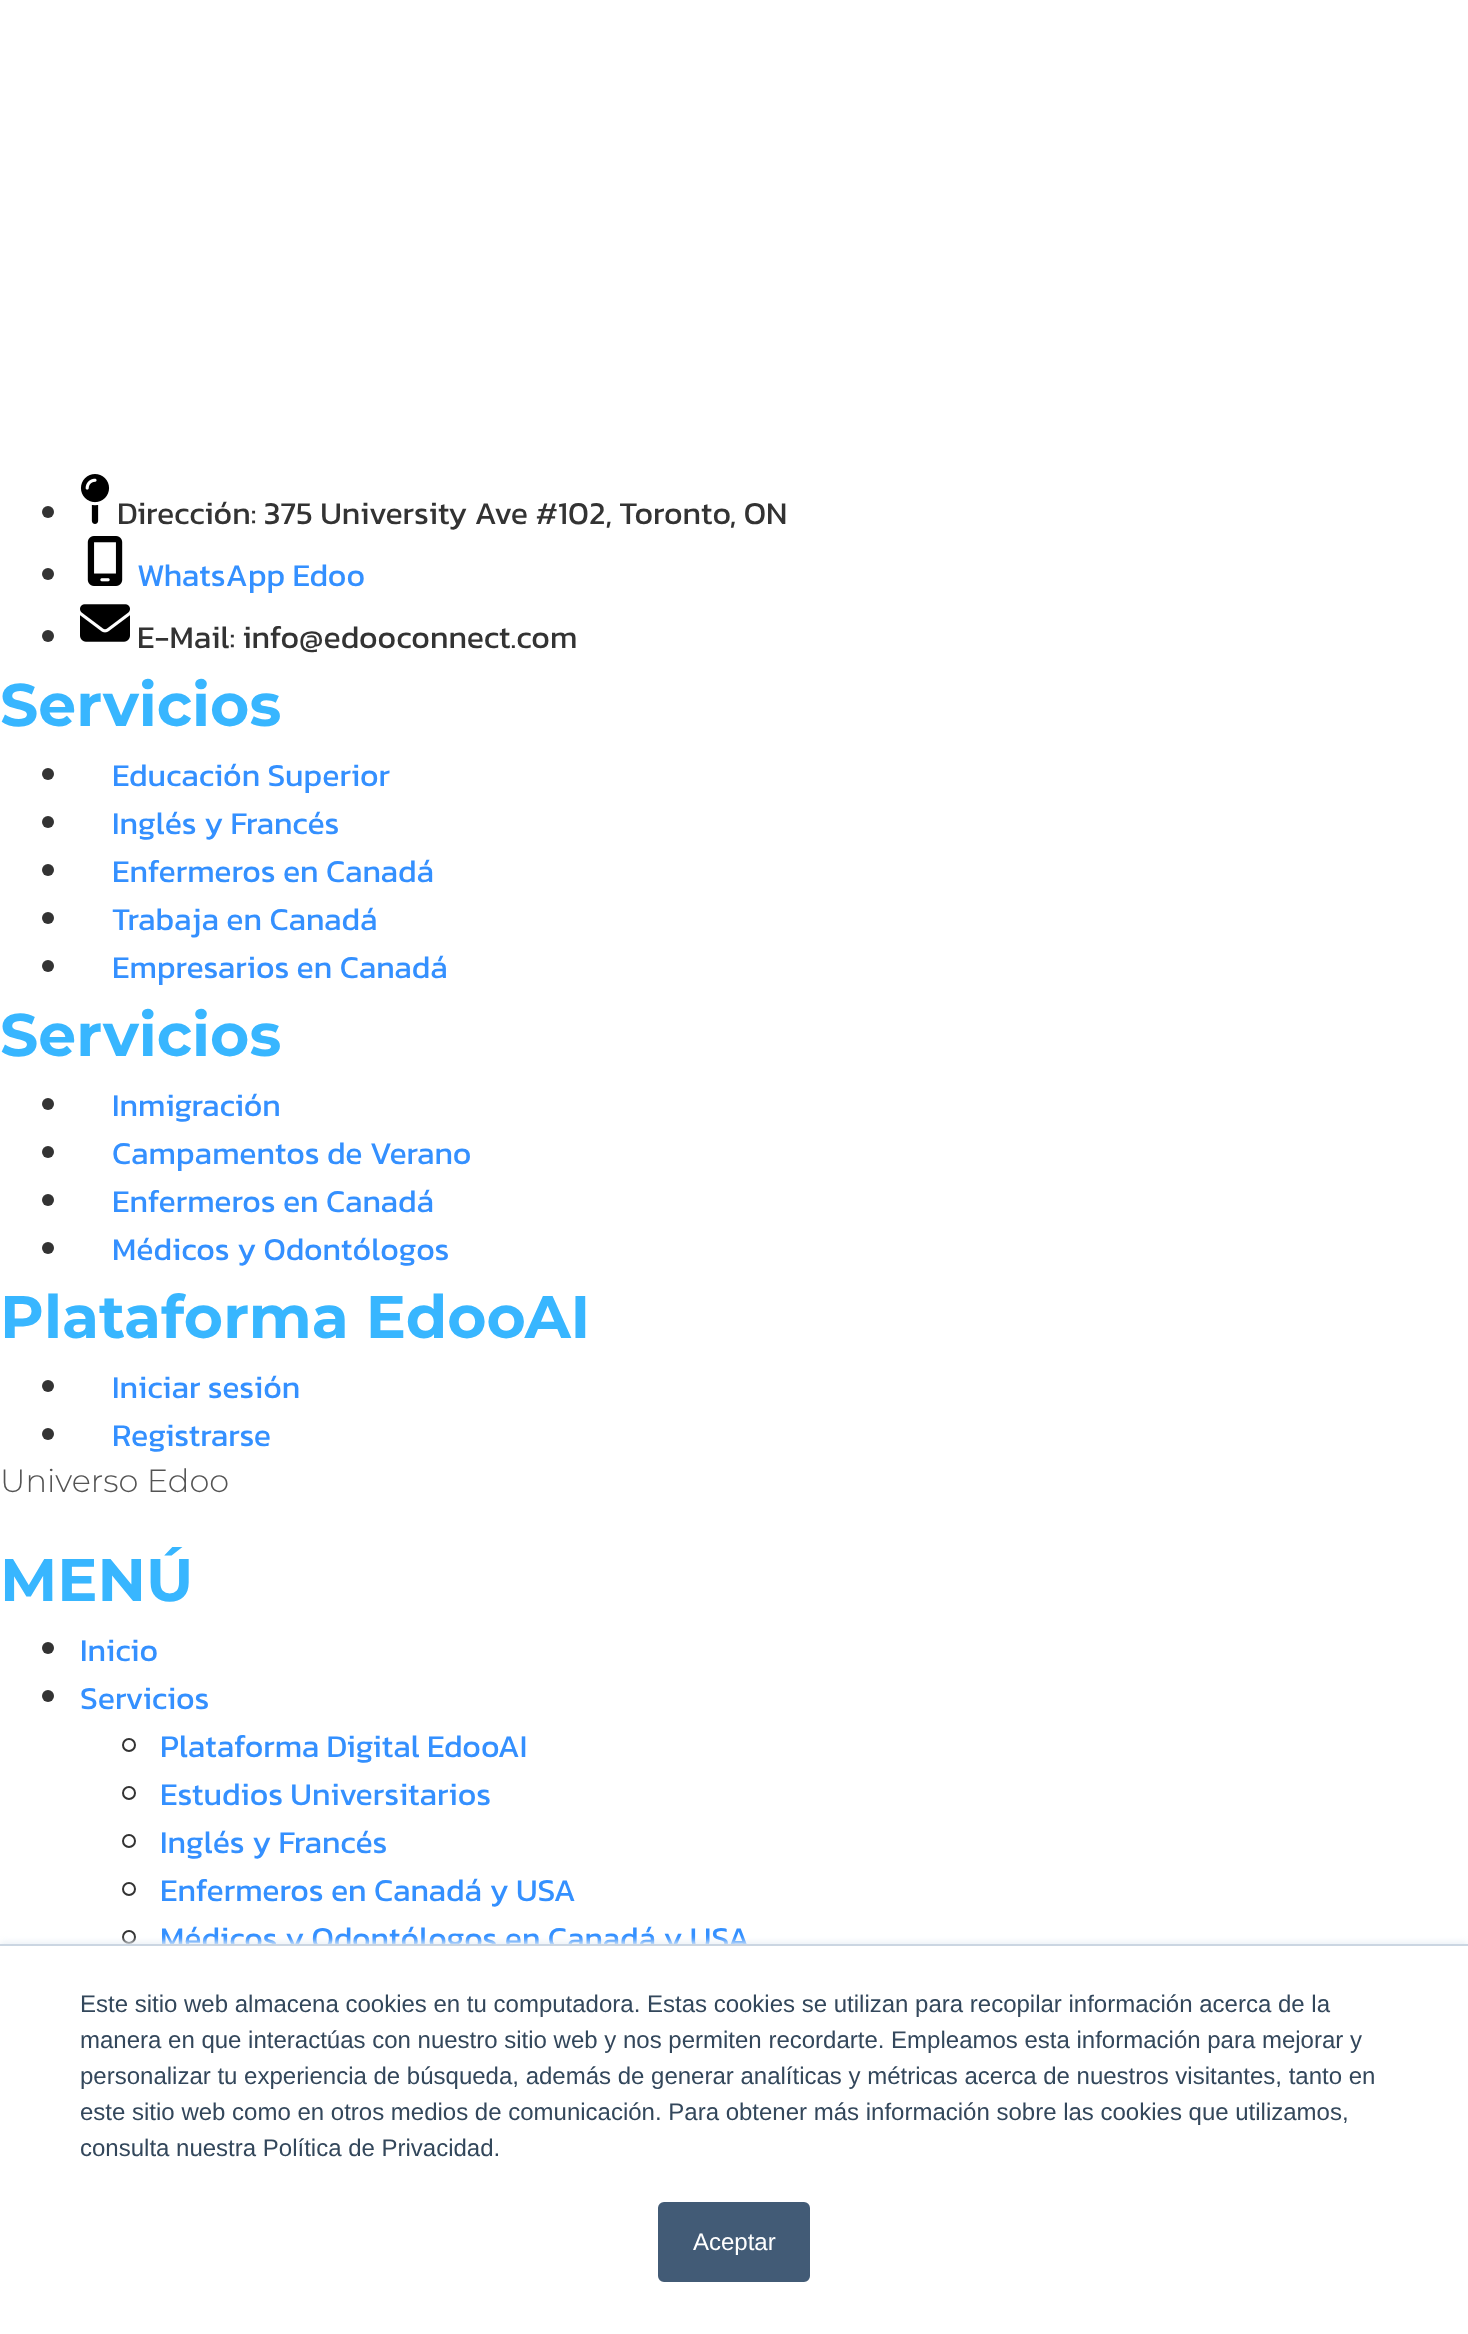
async function draw(canvas) {
  canvas.width = 1468;
  canvas.height = 2334;
  const ctx = canvas.getContext('2d');
  ctx.miterLimit = 4;
  ctx.fontKerning = 'normal';
  function label(s, x, y, font, color) {
    ctx.font = font;
    ctx.fillStyle = color;
    ctx.fillText(s, x, y);
  }
  function rect(x, y, w, h, color) {
    ctx.fillStyle = color;
    ctx.fillRect(x, y, w, h);
  }
  async function image(src, x, y, w, h) {
    const img = new Image();
    img.src = src;
    await img.decode();
    ctx.drawImage(img, x, y, w, h);
  }

  rect(0, 0, 1468, 2334, '#fff');
  ctx.fillStyle = '#333';
  ctx.beginPath();
  ctx.arc(48, 512, 6, 0, 2 * Math.PI);
  ctx.fill();
  await image('assets/img1.png', 80, 474, 30, 50);
  label('Dirección: 375 University Ave #102, Toronto, ON', 117, 524, '32px Kanit', '#333');
  ctx.beginPath();
  ctx.arc(48, 574, 6, 0, 2 * Math.PI);
  ctx.fill();
  await image('assets/img2.png', 87, 536, 36, 50);
  label('WhatsApp Edoo', 137, 586, '32px Kanit', '#3490ff');
  ctx.fillStyle = '#333';
  ctx.beginPath();
  ctx.arc(48, 636, 6, 0, 2 * Math.PI);
  ctx.fill();
  await image('assets/img3.png', 80, 604, 50, 38);
  label('E-Mail: info@edooconnect.com', 137, 648, '32px Kanit', '#333');
  label('Servicios', 0, 726, 'bold 60px Montserrat', '#38b6ff');
  ctx.fillStyle = '#333';
  ctx.beginPath();
  ctx.arc(48, 774, 6, 0, 2 * Math.PI);
  ctx.fill();
  label('Educación Superior', 112, 786, '32px Kanit', '#3490ff');
  ctx.fillStyle = '#333';
  ctx.beginPath();
  ctx.arc(48, 822, 6, 0, 2 * Math.PI);
  ctx.fill();
  label('Inglés y Francés', 112, 834, '32px Kanit', '#3490ff');
  ctx.fillStyle = '#333';
  ctx.beginPath();
  ctx.arc(48, 870, 6, 0, 2 * Math.PI);
  ctx.fill();
  label('Enfermeros en Canadá', 112, 882, '32px Kanit', '#3490ff');
  ctx.fillStyle = '#333';
  ctx.beginPath();
  ctx.arc(48, 918, 6, 0, 2 * Math.PI);
  ctx.fill();
  label('Trabaja en Canadá', 112, 930, '32px Kanit', '#3490ff');
  ctx.fillStyle = '#333';
  ctx.beginPath();
  ctx.arc(48, 966, 6, 0, 2 * Math.PI);
  ctx.fill();
  label('Empresarios en Canadá', 112, 978, '32px Kanit', '#3490ff');
  label('Servicios', 0, 1056, 'bold 60px Montserrat', '#38b6ff');
  ctx.fillStyle = '#333';
  ctx.beginPath();
  ctx.arc(48, 1104, 6, 0, 2 * Math.PI);
  ctx.fill();
  label('Inmigración', 112, 1116, '32px Kanit', '#3490ff');
  ctx.fillStyle = '#333';
  ctx.beginPath();
  ctx.arc(48, 1152, 6, 0, 2 * Math.PI);
  ctx.fill();
  label('Campamentos de Verano', 112, 1164, '32px Kanit', '#3490ff');
  ctx.fillStyle = '#333';
  ctx.beginPath();
  ctx.arc(48, 1200, 6, 0, 2 * Math.PI);
  ctx.fill();
  label('Enfermeros en Canadá', 112, 1212, '32px Kanit', '#3490ff');
  ctx.fillStyle = '#333';
  ctx.beginPath();
  ctx.arc(48, 1248, 6, 0, 2 * Math.PI);
  ctx.fill();
  label('Médicos y Odontólogos', 112, 1260, '32px Kanit', '#3490ff');
  label('Plataforma EdooAI', 0, 1338, 'bold 60px Montserrat', '#38b6ff');
  ctx.fillStyle = '#333';
  ctx.beginPath();
  ctx.arc(48, 1386, 6, 0, 2 * Math.PI);
  ctx.fill();
  label('Iniciar sesión', 112, 1398, '32px Kanit', '#3490ff');
  ctx.fillStyle = '#333';
  ctx.beginPath();
  ctx.arc(48, 1434, 6, 0, 2 * Math.PI);
  ctx.fill();
  label('Registrarse', 112, 1446, '32px Kanit', '#3490ff');
  label('Universo Edoo', 0, 1492, '300 32px Montserrat', '#545454');
  label('MENÚ', 0, 1601, 'bold 60px Montserrat', '#38b6ff');
  ctx.fillStyle = '#333';
  ctx.beginPath();
  ctx.arc(48, 1648, 6, 0, 2 * Math.PI);
  ctx.fill();
  label('Inicio', 80, 1661, '32px Kanit', '#3490ff');
  ctx.fillStyle = '#333';
  ctx.beginPath();
  ctx.arc(48, 1696, 6, 0, 2 * Math.PI);
  ctx.fill();
  label('Servicios', 80, 1709, '32px Kanit', '#3490ff');
  ctx.beginPath();
  ctx.arc(129, 1745, 6, 0, 2 * Math.PI);
  ctx.strokeStyle = '#333';
  ctx.lineWidth = 2;
  ctx.stroke();
  label('Plataforma Digital EdooAI', 160, 1757, '32px Kanit', '#3490ff');
  ctx.beginPath();
  ctx.arc(129, 1793, 6, 0, 2 * Math.PI);
  ctx.stroke();
  label('Estudios Universitarios', 160, 1805, '32px Kanit', '#3490ff');
  ctx.beginPath();
  ctx.arc(129, 1841, 6, 0, 2 * Math.PI);
  ctx.stroke();
  label('Inglés y Francés', 160, 1853, '32px Kanit', '#3490ff');
  ctx.beginPath();
  ctx.arc(129, 1889, 6, 0, 2 * Math.PI);
  ctx.stroke();
  label('Enfermeros en Canadá y USA', 160, 1901, '32px Kanit', '#3490ff');
  ctx.beginPath();
  ctx.arc(129, 1937, 6, 0, 2 * Math.PI);
  ctx.stroke();
  label('Médicos y Odontólogos en Canadá y USA', 160, 1949, '32px Kanit', '#3490ff');
  ctx.fillStyle = '#eaf0f6';
  ctx.filter = 'blur(3px)';
  ctx.beginPath();
  ctx.rect(0, 1942, 1468, 390);
  ctx.fill();
  ctx.filter = 'none';
  rect(0, 1946, 1468, 388, '#fff');
  rect(0, 1944, 1468, 2, '#cbd6e2');
  label('Este sitio web almacena cookies en tu computadora. Estas cookies se utilizan para recopilar información acerca de la', 80, 2012, '24px Liberation Sans', '#33475b');
  label('manera en que interactúas con nuestro sitio web y nos permiten recordarte. Empleamos esta información para mejorar y', 80, 2048, '24px Liberation Sans', '#33475b');
  label('personalizar tu experiencia de búsqueda, además de generar analíticas y métricas acerca de nuestros visitantes, tanto en', 80, 2084, '24px Liberation Sans', '#33475b');
  label('este sitio web como en otros medios de comunicación. Para obtener más información sobre las cookies que utilizamos,', 80, 2120, '24px Liberation Sans', '#33475b');
  label('consulta nuestra Política de Privacidad.', 80, 2156, '24px Liberation Sans', '#33475b');
  ctx.fillStyle = '#425b76';
  ctx.beginPath();
  ctx.roundRect(659, 2203, 150, 78, 5);
  ctx.fill();
  ctx.strokeStyle = '#425b76';
  ctx.stroke();
  label('Aceptar', 693, 2250, '24px Liberation Sans', '#fff');
}

draw(document.querySelector('canvas'));
